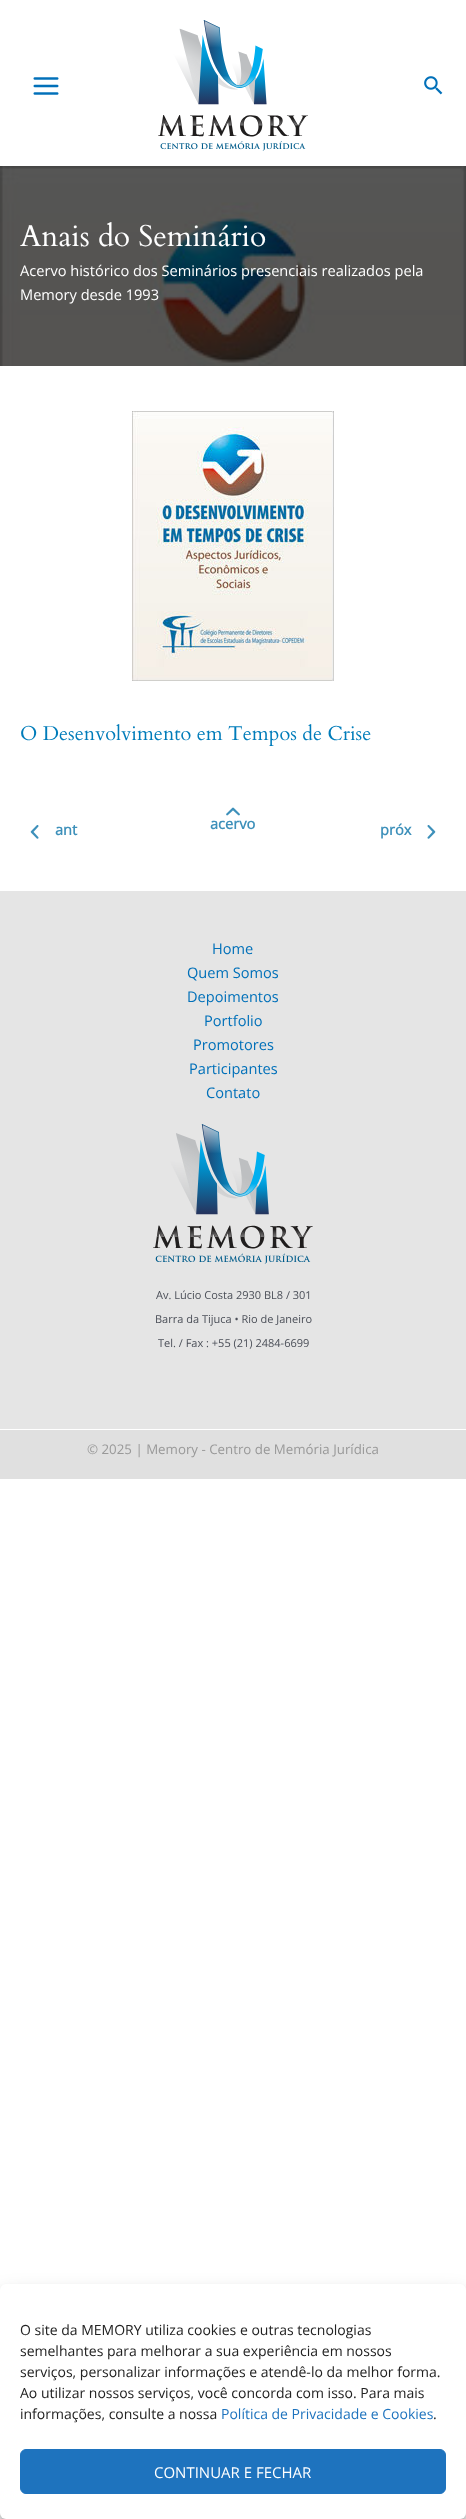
async function draw(canvas) {
  canvas.width = 466;
  canvas.height = 2519;
  const ctx = canvas.getContext('2d');
  ctx.miterLimit = 4;
  ctx.fontKerning = 'normal';
  function label(s, x, y, font, color) {
    ctx.font = font;
    ctx.fillStyle = color;
    ctx.fillText(s, x, y);
  }
  function rect(x, y, w, h, color) {
    ctx.fillStyle = color;
    ctx.fillRect(x, y, w, h);
  }
  function roundedRect(x, y, w, h, r, color) {
    ctx.fillStyle = color;
    ctx.beginPath();
    ctx.roundRect(x, y, w, h, r);
    ctx.fill();
  }
  async function image(src, x, y, w, h) {
    const img = new Image();
    img.src = src;
    await img.decode();
    ctx.drawImage(img, x, y, w, h);
  }

  rect(0, 0, 466, 2519, '#fff');
  await image('assets/img1.png', 33, 77, 26, 18);
  await image('assets/img2.png', 158, 20, 150, 131);
  await image('assets/img3.png', 424, 76, 19, 19);
  await image('assets/img4.png', 0, 166, 466, 200);
  label('Anais do Seminário', 20, 246, '30px Cardo', '#fff');
  label('Acervo histórico dos Seminários presenciais realizados pela', 20, 276, '14.6px Open Sans', '#fff');
  label('Memory desde 1993', 20, 300, '14.6px Open Sans', '#fff');
  await image('assets/img5.png', 132, 411, 202, 270);
  label('O Desenvolvimento em Tempos de Crise', 20, 740, '20px Cardo', '#007cba');
  await image('assets/img6.png', 30, 825, 9, 14);
  label('ant', 55, 835, 'bold 14.6px Open Sans', '#3d90ba');
  await image('assets/img7.png', 226, 807, 14, 9);
  label('acervo', 210, 829, 'bold 14.6px Open Sans', '#3d90ba');
  label('próx', 380, 835, 'bold 14.6px Open Sans', '#3d90ba');
  await image('assets/img8.png', 427, 825, 9, 14);
  rect(0, 891, 466, 538, '#e5e5e5');
  label('Home', 212, 954, '14.6px Open Sans', '#0170b9');
  label('Quem Somos', 187, 978, '14.6px Open Sans', '#0170b9');
  label('Depoimentos', 187, 1002, '14.6px Open Sans', '#0170b9');
  label('Portfolio', 204, 1026, '14.6px Open Sans', '#0170b9');
  label('Promotores', 193, 1050, '14.6px Open Sans', '#0170b9');
  label('Participantes', 189, 1074, '14.6px Open Sans', '#0170b9');
  label('Contato', 206, 1098, '14.6px Open Sans', '#0170b9');
  await image('assets/img9.png', 153, 1124, 160, 140);
  label('Av. Lúcio Costa 2930 BL8 / 301', 156, 1299, '11px Open Sans', '#4b4f58');
  label('Barra da Tijuca • Rio de Janeiro', 155, 1323, '11px Open Sans', '#4b4f58');
  label('Tel. / Fax : +55 (21) 2484-6699', 158, 1347, '11px Open Sans', '#4b4f58');
  rect(0, 1430, 466, 49, '#e0e0e0');
  label('© 2025 | Memory - Centro de Memória Jurídica', 87, 1454, '13.3px Open Sans', '#999');
  ctx.fillStyle = '#0000003b';
  ctx.filter = 'blur(3px)';
  ctx.beginPath();
  ctx.roundRect(0, 2290, 466, 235, 6);
  ctx.fill();
  ctx.filter = 'none';
  ctx.fillStyle = '#00000030';
  ctx.filter = 'blur(10px)';
  ctx.beginPath();
  ctx.roundRect(0, 2294, 466, 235, 6);
  ctx.fill();
  ctx.filter = 'none';
  roundedRect(0, 2284, 466, 235, 6, '#fff');
  label('O site da MEMORY utiliza cookies e outras tecnologias', 20, 2335, '14px Open Sans', '#222');
  label('semelhantes para melhorar a sua experiência em nossos', 20, 2356, '14px Open Sans', '#222');
  label('serviços, personalizar informações e atendê-lo da melhor forma.', 20, 2377, '14px Open Sans', '#222');
  label('Ao utilizar nossos serviços, você concorda com isso. Para mais', 20, 2398, '14px Open Sans', '#222');
  label('informações, consulte a nossa', 20, 2419, '14px Open Sans', '#222');
  label('Política de Privacidade e Cookies', 221, 2419, '14px Open Sans', '#1e73be');
  label('.', 433, 2419, '14px Open Sans', '#222');
  ctx.fillStyle = '#1e73be';
  ctx.beginPath();
  ctx.roundRect(20.5, 2449.5, 425, 44, 5.5);
  ctx.fill();
  ctx.strokeStyle = '#1e73be';
  ctx.stroke();
  label('CONTINUAR E FECHAR', 154, 2478, '15px Open Sans', '#fff');
}

draw(document.querySelector('canvas'));
